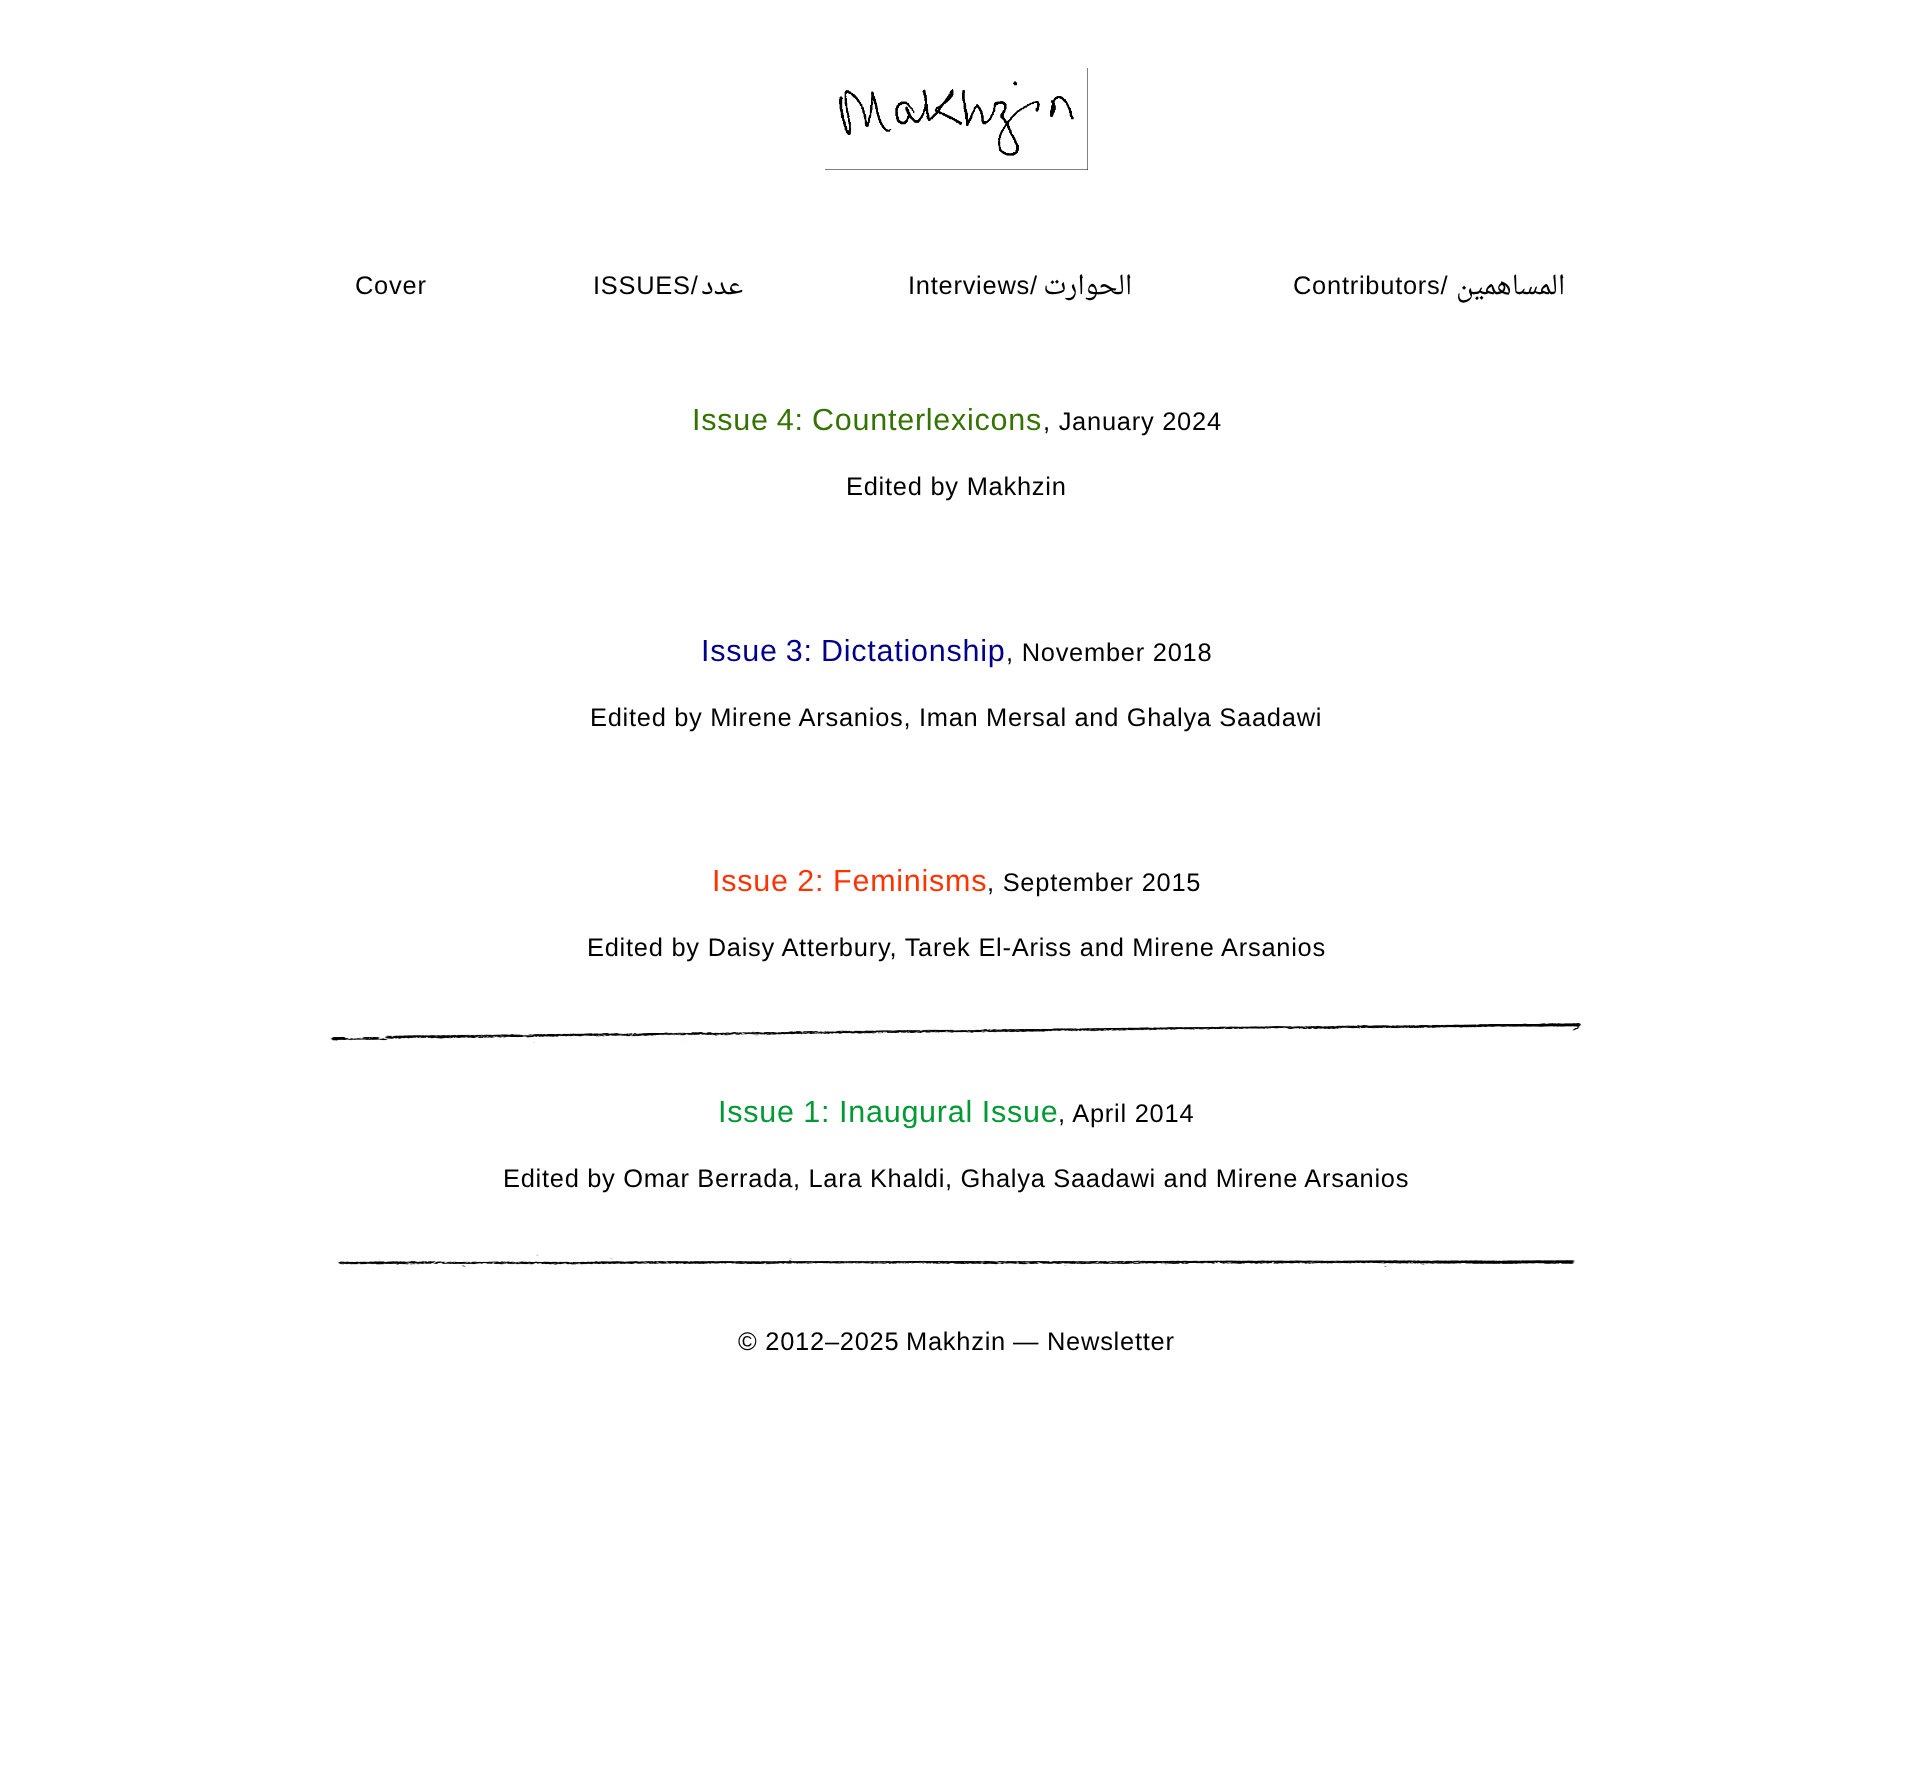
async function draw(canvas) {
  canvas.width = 1912;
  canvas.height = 1780;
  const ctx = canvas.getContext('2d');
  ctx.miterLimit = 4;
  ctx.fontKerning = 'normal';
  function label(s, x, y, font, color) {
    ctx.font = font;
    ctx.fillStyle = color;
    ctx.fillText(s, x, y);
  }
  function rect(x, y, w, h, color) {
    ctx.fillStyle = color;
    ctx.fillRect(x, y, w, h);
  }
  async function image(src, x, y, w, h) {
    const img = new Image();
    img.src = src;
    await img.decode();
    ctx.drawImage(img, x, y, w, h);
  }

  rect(0, 0, 1912, 1780, '#fff');
  rect(825, 68, 263, 102, '#000');
  await image('assets/img1.png', 825, 68, 263, 102);
  ctx.letterSpacing = '0.75px';
  label('Cover', 355, 294, '25.45px Liberation Sans', '#000');
  label('ISSUES/', 593, 294, '25.45px Liberation Sans', '#000');
  ctx.direction = 'rtl';
  label('عدد', 743, 294, '25.45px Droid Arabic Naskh', '#000');
  ctx.direction = 'ltr';
  label('Interviews/', 908, 294, '25.45px Liberation Sans', '#000');
  ctx.direction = 'rtl';
  label('الحوارت', 1132, 294, '25.45px Droid Arabic Naskh', '#000');
  ctx.direction = 'ltr';
  label('Contributors/', 1293, 294, '25.45px Liberation Sans', '#000');
  ctx.direction = 'rtl';
  label('المساهمين', 1565, 294, '25.45px Droid Arabic Naskh', '#000');
  ctx.wordSpacing = '-1px';
  ctx.direction = 'ltr';
  label('Issue 4: Counterlexicons', 692, 430, '30.5px Liberation Sans', '#347300');
  ctx.wordSpacing = '0px';
  label(', January 2024', 1043, 430, '25.45px Liberation Sans', '#000');
  label('Edited by Makhzin', 846, 495, '25.45px Liberation Sans', '#000');
  ctx.wordSpacing = '-1px';
  label('Issue 3: Dictationship', 701, 661, '30.5px Liberation Sans', '#00008b');
  ctx.wordSpacing = '0px';
  label(', November 2018', 1006, 661, '25.45px Liberation Sans', '#000');
  ctx.wordSpacing = '-0.25px';
  label('Edited by Mirene Arsanios, Iman Mersal and Ghalya Saadawi', 590, 726, '25.45px Liberation Sans', '#000');
  ctx.wordSpacing = '-0.5px';
  label('Issue 2: Feminisms', 712, 891, '30.5px Liberation Sans', '#f30');
  ctx.wordSpacing = '0px';
  label(', September 2015', 987, 891, '25.45px Liberation Sans', '#000');
  label('Edited by Daisy Atterbury, Tarek El-Ariss and Mirene Arsanios', 587, 956, '25.45px Liberation Sans', '#000');
  await image('assets/img2.png', 330, 1023, 1252, 20);
  ctx.wordSpacing = '-0.5px';
  label('Issue 1: Inaugural Issue', 718, 1122, '30.5px Liberation Sans', '#093');
  ctx.wordSpacing = '0px';
  label(', April 2014', 1058, 1122, '25.45px Liberation Sans', '#000');
  ctx.wordSpacing = '-0.25px';
  label('Edited by Omar Berrada, Lara Khaldi, Ghalya Saadawi and Mirene Arsanios', 503, 1187, '25.45px Liberation Sans', '#000');
  await image('assets/img3.png', 337, 1255, 1239, 12);
  ctx.wordSpacing = '0px';
  label('© 2012–2025', 738, 1350, '25.45px Liberation Sans', '#000');
  label('Makhzin', 906, 1350, '25.45px Liberation Sans', '#000');
  label('—', 1013, 1350, '25.45px Liberation Sans', '#000');
  label('Newsletter', 1047, 1350, '25.45px Liberation Sans', '#000');
}

draw(document.querySelector('canvas'));
